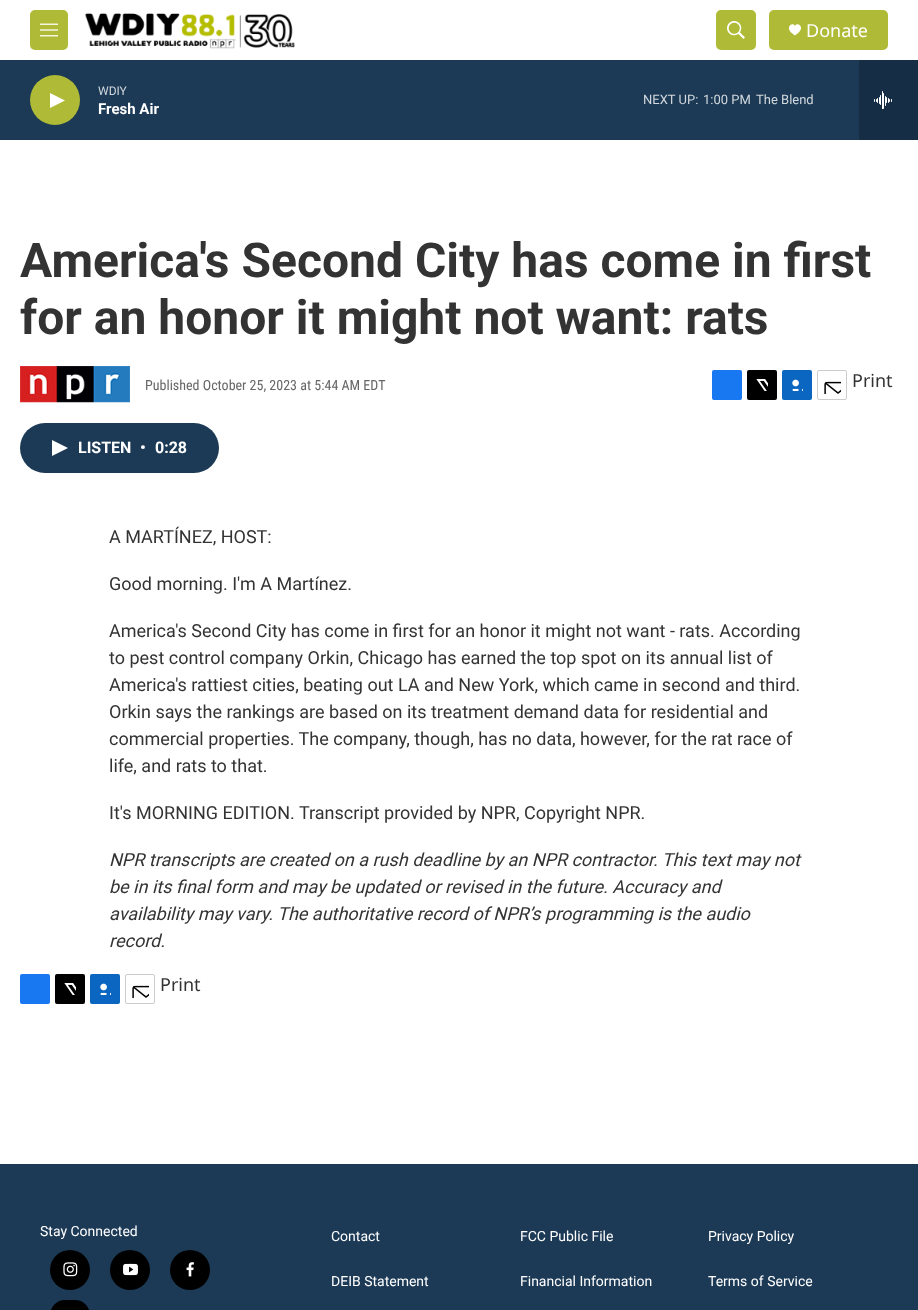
async function draw(canvas) {
  canvas.width = 918;
  canvas.height = 1310;
  const ctx = canvas.getContext('2d');
  ctx.miterLimit = 4;
  ctx.fontKerning = 'normal';
  function label(s, x, y, font, color) {
    ctx.font = font;
    ctx.fillStyle = color;
    ctx.fillText(s, x, y);
  }
  function rect(x, y, w, h, color) {
    ctx.fillStyle = color;
    ctx.fillRect(x, y, w, h);
  }
  function roundedRect(x, y, w, h, r, color) {
    ctx.fillStyle = color;
    ctx.beginPath();
    ctx.roundRect(x, y, w, h, r);
    ctx.fill();
  }
  async function image(src, x, y, w, h) {
    const img = new Image();
    img.src = src;
    await img.decode();
    ctx.drawImage(img, x, y, w, h);
  }
  let path;

  rect(0, 0, 918, 1310, '#fff');
  roundedRect(30, 10, 38, 40, 5, '#afba36');
  await image('assets/img1.png', 40, 23, 18, 14);
  await image('assets/img2.png', 85, 13, 210, 36);
  roundedRect(716, 10, 40, 40, 5, '#afba36');
  await image('assets/img3.png', 727, 21, 18, 18);
  roundedRect(769, 10, 119, 40, 5, '#afba36');
  ctx.fillStyle = '#fff';
  path = new Path2D('M795 26C793 21 782.5 28 795 35.5C807.5 28 797 21 795 26Z');
  ctx.fill(path);
  label('Donate', 806, 37, '18px Noto Sans', '#fff');
  rect(0, 60, 859, 80, '#1c3a56');
  ctx.fillStyle = '#afba36';
  ctx.beginPath();
  ctx.arc(55, 100, 25, 0, 2 * Math.PI);
  ctx.fill();
  ctx.fillStyle = '#fff';
  path = new Path2D('M50 93L65 100.5L50 108Z');
  ctx.fill(path);
  label('WDIY', 98, 95, '12px Roboto', '#d2d8dd');
  label('Fresh Air', 98, 114, 'bold 15px "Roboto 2"', '#fff');
  label('NEXT UP:', 643, 104, '13px Roboto', '#d2d8dd');
  label('1:00 PM', 703, 104, '13px Roboto', '#d2d8dd');
  label('The Blend', 756, 104, '13px Roboto', '#d2d8dd');
  rect(859, 60, 59, 80, '#162e45');
  await image('assets/img4.png', 874, 91, 18, 18);
  label('America\'s Second City has come in first', 20, 277, 'bold 48px Roboto', '#333');
  label('for an honor it might not want: rats', 20, 334, 'bold 48px Roboto', '#333');
  await image('assets/img5.png', 20, 366, 110, 37);
  label('Published October 25, 2023 at 5:44 AM EDT', 145, 390, '14px Roboto Condensed', '#666');
  roundedRect(712, 370, 30, 30, 2, '#1778f2');
  roundedRect(747, 370, 30, 30, 2, '#000');
  await image('assets/img6.png', 756, 379, 12, 12);
  roundedRect(782, 370, 30, 30, 2, '#0a66c1');
  await image('assets/img7.png', 792, 379, 11, 12);
  ctx.beginPath();
  ctx.roundRect(817.5, 370.5, 29, 29, 1.5);
  ctx.strokeStyle = '#ccc';
  ctx.stroke();
  await image('assets/img8.png', 824, 381, 17, 13);
  label('Print', 852, 387, '18px Noto Sans', '#333');
  roundedRect(20, 423, 199, 50, 25, '#1c3a56');
  ctx.fillStyle = '#fff';
  path = new Path2D('M52 440L68 448L52 456Z');
  ctx.fill(path);
  label('LISTEN', 78, 453, 'bold 16px "Roboto 2"', '#fff');
  label('•', 140, 453, 'bold 16px "Roboto 2"', '#fff');
  label('0:28', 155, 453, 'bold 16px "Roboto 2"', '#fff');
  label('A MARTÍNEZ, HOST:', 109, 543, '18px Roboto', '#333');
  label('Good morning. I\'m A Martínez.', 109, 590, '18px Roboto', '#333');
  label('America\'s Second City has come in first for an honor it might not want - rats. According', 109, 637, '18px Roboto', '#333');
  label('to pest control company Orkin, Chicago has earned the top spot on its annual list of', 109, 664, '18px Roboto', '#333');
  label('America\'s rattiest cities, beating out LA and New York, which came in second and third.', 109, 691, '18px Roboto', '#333');
  label('Orkin says the rankings are based on its treatment demand data for residential and', 109, 718, '18px Roboto', '#333');
  label('commercial properties. The company, though, has no data, however, for the rat race of', 109, 745, '18px Roboto', '#333');
  label('life, and rats to that.', 109, 772, '18px Roboto', '#333');
  label('It\'s MORNING EDITION. Transcript provided by NPR, Copyright NPR.', 109, 819, '18px Roboto', '#333');
  label('NPR transcripts are created on a rush deadline by an NPR contractor. This text may not', 109, 866, 'italic 18px Roboto', '#333');
  label('be in its final form and may be updated or revised in the future. Accuracy and', 109, 893, 'italic 18px Roboto', '#333');
  label('availability may vary. The authoritative record of NPR’s programming is the audio', 109, 920, 'italic 18px Roboto', '#333');
  label('record.', 109, 947, 'italic 18px Roboto', '#333');
  roundedRect(20, 974, 30, 30, 2, '#1778f2');
  roundedRect(55, 974, 30, 30, 2, '#000');
  await image('assets/img6.png', 64, 983, 12, 12);
  roundedRect(90, 974, 30, 30, 2, '#0a66c1');
  await image('assets/img7.png', 100, 983, 11, 12);
  ctx.beginPath();
  ctx.roundRect(125.5, 974.5, 29, 29, 1.5);
  ctx.stroke();
  await image('assets/img8.png', 132, 985, 17, 13);
  label('Print', 160, 991, '18px Noto Sans', '#333');
  rect(0, 1164, 918, 146, '#1c3a56');
  label('Stay Connected', 40, 1236, '14px Roboto', '#fff');
  ctx.fillStyle = '#000';
  ctx.beginPath();
  ctx.arc(70, 1270, 20, 0, 2 * Math.PI);
  ctx.fill();
  await image('assets/img9.png', 63, 1262, 15, 15);
  ctx.beginPath();
  ctx.arc(130, 1270, 20, 0, 2 * Math.PI);
  ctx.fill();
  await image('assets/img10.png', 123, 1263, 15, 13);
  ctx.beginPath();
  ctx.arc(190, 1270, 20, 0, 2 * Math.PI);
  ctx.fill();
  await image('assets/img11.png', 186, 1262, 8, 15);
  roundedRect(50, 1300, 40, 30, 20, '#000');
  label('Contact', 331, 1241, '14px Roboto', '#fff');
  label('FCC Public File', 520, 1241, '14px Roboto', '#fff');
  label('Privacy Policy', 708, 1241, '14px Roboto', '#fff');
  label('DEIB Statement', 331, 1286, '14px Roboto', '#fff');
  label('Financial Information', 520, 1286, '14px Roboto', '#fff');
  label('Terms of Service', 708, 1286, '14px Roboto', '#fff');
}

draw(document.querySelector('canvas'));
